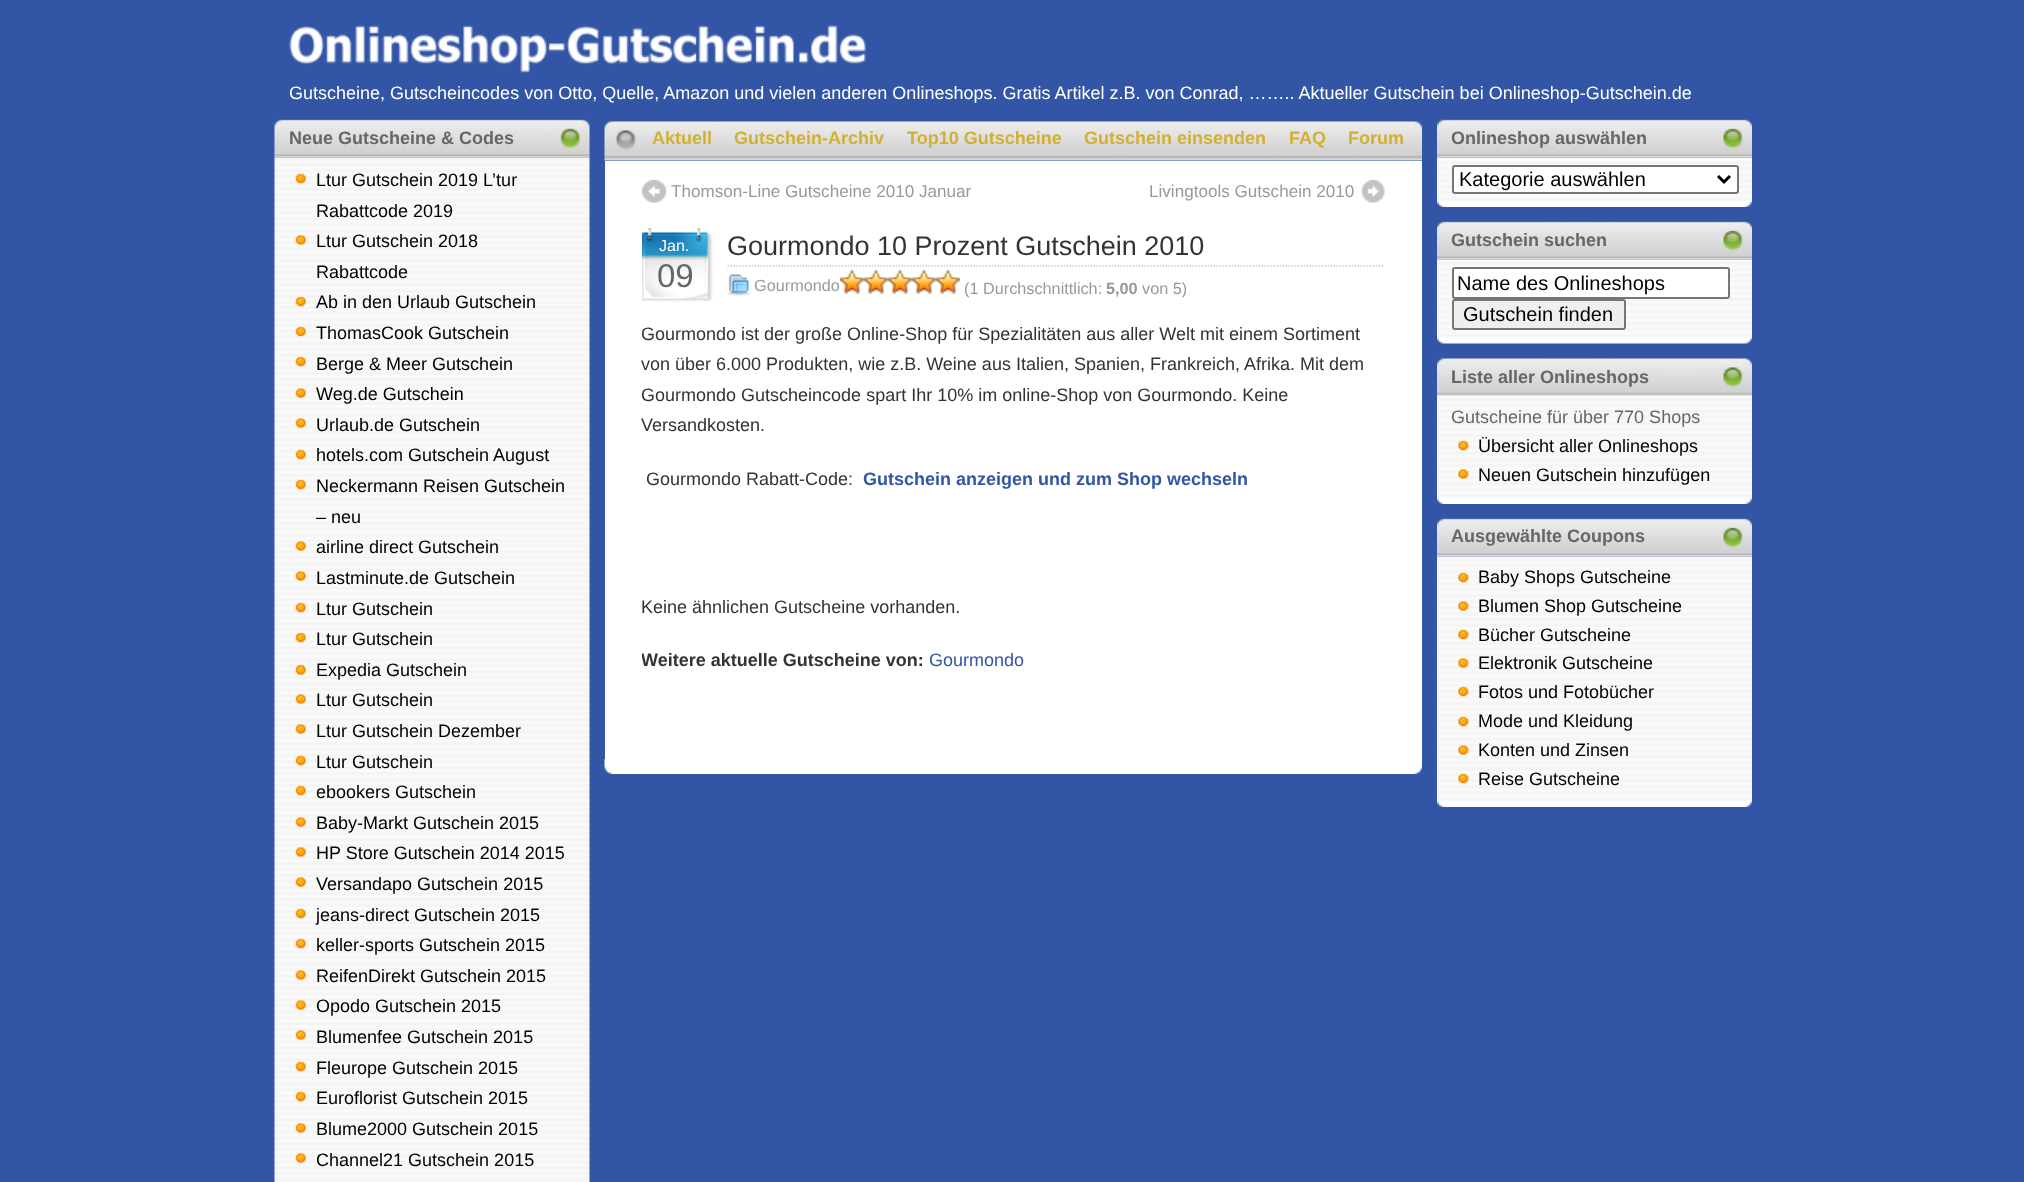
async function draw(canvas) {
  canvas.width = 2024;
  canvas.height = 1182;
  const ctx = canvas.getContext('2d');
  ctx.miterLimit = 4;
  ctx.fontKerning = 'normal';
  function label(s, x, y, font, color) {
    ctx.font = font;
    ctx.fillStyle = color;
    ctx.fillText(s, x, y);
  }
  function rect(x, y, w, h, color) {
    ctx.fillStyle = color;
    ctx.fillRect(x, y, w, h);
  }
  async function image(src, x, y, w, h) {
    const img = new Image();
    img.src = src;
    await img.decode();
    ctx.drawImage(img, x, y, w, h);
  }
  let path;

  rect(0, 0, 2024, 1182, '#3255a6');
  await image('assets/img1.png', 289, 25, 577, 48);
  label('Gutscheine, Gutscheincodes von Otto, Quelle, Amazon und vielen anderen Onlineshops. Gratis Artikel z.B. von Conrad, …….. Aktueller Gutschein bei Onlineshop-Gutschein.de', 289, 99, '18px Liberation Sans', '#fff');
  await image('assets/img4.png', 274, 157, 316, 1025);
  await image('assets/img2.png', 274, 119, 316, 39);
  label('Neue Gutscheine & Codes', 289, 144, 'bold 18px Liberation Sans', '#666');
  await image('assets/img3.png', 560, 128, 21, 21);
  await image('assets/img5.png', 295, 173, 11, 11);
  label('Ltur Gutschein 2019 L’tur', 316, 186, '18px Liberation Sans', '#000');
  label('Rabattcode 2019', 316, 217, '18px Liberation Sans', '#000');
  await image('assets/img6.png', 295, 235, 11, 10);
  label('Ltur Gutschein 2018', 316, 247, '18px Liberation Sans', '#000');
  label('Rabattcode', 316, 278, '18px Liberation Sans', '#000');
  await image('assets/img7.png', 295, 296, 11, 11);
  label('Ab in den Urlaub Gutschein', 316, 308, '18px Liberation Sans', '#000');
  await image('assets/img8.png', 295, 326, 11, 11);
  label('ThomasCook Gutschein', 316, 339, '18px Liberation Sans', '#000');
  await image('assets/img8.png', 295, 356, 11, 11);
  label('Berge & Meer Gutschein', 316, 370, '18px Liberation Sans', '#000');
  await image('assets/img9.png', 295, 388, 11, 10);
  label('Weg.de Gutschein', 316, 400, '18px Liberation Sans', '#000');
  await image('assets/img9.png', 295, 418, 11, 10);
  label('Urlaub.de Gutschein', 316, 431, '18px Liberation Sans', '#000');
  await image('assets/img10.png', 295, 449, 11, 11);
  label('hotels.com Gutschein August', 316, 461, '18px Liberation Sans', '#000');
  await image('assets/img10.png', 295, 479, 11, 11);
  label('Neckermann Reisen Gutschein', 316, 492, '18px Liberation Sans', '#000');
  label('– neu', 316, 523, '18px Liberation Sans', '#000');
  await image('assets/img11.png', 295, 541, 11, 10);
  label('airline direct Gutschein', 316, 553, '18px Liberation Sans', '#000');
  await image('assets/img12.png', 295, 571, 11, 10);
  label('Lastminute.de Gutschein', 316, 584, '18px Liberation Sans', '#000');
  await image('assets/img13.png', 295, 602, 11, 11);
  label('Ltur Gutschein', 316, 615, '18px Liberation Sans', '#000');
  await image('assets/img13.png', 295, 632, 11, 11);
  label('Ltur Gutschein', 316, 645, '18px Liberation Sans', '#000');
  await image('assets/img14.png', 295, 664, 11, 11);
  label('Expedia Gutschein', 316, 676, '18px Liberation Sans', '#000');
  await image('assets/img15.png', 295, 694, 11, 10);
  label('Ltur Gutschein', 316, 706, '18px Liberation Sans', '#000');
  await image('assets/img16.png', 295, 724, 11, 10);
  label('Ltur Gutschein Dezember', 316, 737, '18px Liberation Sans', '#000');
  await image('assets/img17.png', 295, 755, 11, 11);
  label('Ltur Gutschein', 316, 768, '18px Liberation Sans', '#000');
  await image('assets/img18.png', 295, 785, 11, 11);
  label('ebookers Gutschein', 316, 798, '18px Liberation Sans', '#000');
  await image('assets/img19.png', 295, 817, 11, 10);
  label('Baby-Markt Gutschein 2015', 316, 829, '18px Liberation Sans', '#000');
  await image('assets/img19.png', 295, 847, 11, 10);
  label('HP Store Gutschein 2014 2015', 316, 859, '18px Liberation Sans', '#000');
  await image('assets/img20.png', 295, 877, 11, 10);
  label('Versandapo Gutschein 2015', 316, 890, '18px Liberation Sans', '#000');
  await image('assets/img21.png', 295, 908, 11, 11);
  label('jeans-direct Gutschein 2015', 316, 921, '18px Liberation Sans', '#000');
  await image('assets/img22.png', 295, 938, 11, 11);
  label('keller-sports Gutschein 2015', 316, 951, '18px Liberation Sans', '#000');
  await image('assets/img23.png', 295, 970, 11, 10);
  label('ReifenDirekt Gutschein 2015', 316, 982, '18px Liberation Sans', '#000');
  await image('assets/img23.png', 295, 1000, 11, 10);
  label('Opodo Gutschein 2015', 316, 1012, '18px Liberation Sans', '#000');
  await image('assets/img23.png', 295, 1030, 11, 10);
  label('Blumenfee Gutschein 2015', 316, 1043, '18px Liberation Sans', '#000');
  await image('assets/img24.png', 295, 1061, 11, 11);
  label('Fleurope Gutschein 2015', 316, 1074, '18px Liberation Sans', '#000');
  await image('assets/img24.png', 295, 1091, 11, 11);
  label('Euroflorist Gutschein 2015', 316, 1104, '18px Liberation Sans', '#000');
  await image('assets/img25.png', 295, 1123, 11, 10);
  label('Blume2000 Gutschein 2015', 316, 1135, '18px Liberation Sans', '#000');
  await image('assets/img26.png', 295, 1153, 11, 10);
  label('Channel21 Gutschein 2015', 316, 1166, '18px Liberation Sans', '#000');
  await image('assets/img27.png', 604, 121, 818, 40);
  label('Aktuell', 652, 144, 'bold 18px Liberation Sans', '#d2b032');
  label('Gutschein-Archiv', 734, 144, 'bold 18px Liberation Sans', '#d2b032');
  label('Top10 Gutscheine', 907, 144, 'bold 18px Liberation Sans', '#d2b032');
  label('Gutschein einsenden', 1084, 144, 'bold 18px Liberation Sans', '#d2b032');
  label('FAQ', 1289, 144, 'bold 18px Liberation Sans', '#d2b032');
  label('Forum', 1348, 144, 'bold 18px Liberation Sans', '#d2b032');
  rect(605, 161, 817, 598, '#fff');
  await image('assets/img28.png', 642, 180, 26, 23);
  label('Thomson-Line Gutscheine 2010 Januar', 671, 197, '17.1px Liberation Sans', '#999');
  await image('assets/img29.png', 1360, 180, 25, 23);
  label('Livingtools Gutschein 2010', 1149, 197, '17.1px Liberation Sans', '#999');
  await image('assets/img30.png', 642, 228, 71, 74);
  label('Jan.', 659, 251, '16px Liberation Sans', '#fff');
  label('09', 657, 287, '33px Liberation Sans', '#666');
  path = new Path2D('M727.5 266H1384.5');
  ctx.strokeStyle = '#ccc';
  ctx.lineWidth = 1.5;
  ctx.setLineDash([1.5, 1.5]);
  ctx.stroke(path);
  label('Gourmondo 10 Prozent Gutschein 2010', 727, 255, '27px Liberation Sans', '#333');
  await image('assets/img31.png', 727, 274, 23, 22);
  label('Gourmondo', 754, 291, '16.25px Liberation Sans', '#999');
  await image('assets/img32.png', 840, 270, 24, 24);
  await image('assets/img32.png', 864, 270, 24, 24);
  await image('assets/img32.png', 888, 270, 24, 24);
  await image('assets/img32.png', 912, 270, 24, 24);
  await image('assets/img32.png', 936, 270, 24, 24);
  label('(1 Durchschnittlich:', 964, 294, '16.25px Liberation Sans', '#999');
  label('5,00', 1106, 294, 'bold 16.25px Liberation Sans', '#999');
  label('von 5)', 1142, 294, '16.25px Liberation Sans', '#999');
  label('Gourmondo ist der große Online-Shop für Spezialitäten aus aller Welt mit einem Sortiment', 641, 340, '18px Liberation Sans', '#333');
  label('von über 6.000 Produkten, wie z.B. Weine aus Italien, Spanien, Frankreich, Afrika. Mit dem', 641, 370, '18px Liberation Sans', '#333');
  label('Gourmondo Gutscheincode spart Ihr 10% im online-Shop von Gourmondo. Keine', 641, 401, '18px Liberation Sans', '#333');
  label('Versandkosten.', 641, 431, '18px Liberation Sans', '#333');
  label('Gourmondo Rabatt-Code:', 646, 485, '18px Liberation Sans', '#333');
  label('Gutschein anzeigen und zum Shop wechseln', 863, 485, 'bold 18px Liberation Sans', '#3255a6');
  label('Keine ähnlichen Gutscheine vorhanden.', 641, 613, '18px Liberation Sans', '#333');
  ctx.save();
  ctx.beginPath();
  ctx.rect(642, 228, 743, 479);
  ctx.clip();
  label('Weitere aktuelle Gutscheine von:', 641, 666, 'bold 18px Liberation Sans', '#333');
  ctx.restore();
  label('Gourmondo', 929, 666, '18px Liberation Sans', '#3255a6');
  await image('assets/img33.png', 604, 759, 818, 15);
  await image('assets/img36.png', 1437, 157, 315, 50);
  await image('assets/img34.png', 1437, 119, 315, 39);
  label('Onlineshop auswählen', 1451, 144, 'bold 18px Liberation Sans', '#666');
  await image('assets/img35.png', 1723, 128, 21, 21);
  ctx.fillStyle = '#fff';
  ctx.beginPath();
  ctx.roundRect(1453, 166, 285, 27, 2);
  ctx.fill();
  ctx.strokeStyle = '#767676';
  ctx.lineWidth = 2;
  ctx.setLineDash([]);
  ctx.stroke();
  path = new Path2D('M1718 176L1724 182L1730 176');
  ctx.strokeStyle = '#000';
  ctx.lineWidth = 3;
  ctx.stroke(path);
  label('Kategorie auswählen', 1459, 186, '20px Liberation Sans', '#000');
  await image('assets/img38.png', 1437, 259, 315, 85);
  await image('assets/img37.png', 1437, 221, 315, 39);
  label('Gutschein suchen', 1451, 246, 'bold 18px Liberation Sans', '#666');
  await image('assets/img35.png', 1723, 230, 21, 21);
  ctx.fillStyle = '#fff';
  ctx.beginPath();
  ctx.roundRect(1453, 268, 276, 30, 2);
  ctx.fill();
  ctx.strokeStyle = '#767676';
  ctx.lineWidth = 2;
  ctx.stroke();
  label('Name des Onlineshops', 1457, 290, '20px Liberation Sans', '#000');
  ctx.fillStyle = '#efefef';
  ctx.beginPath();
  ctx.roundRect(1453, 300, 172, 29, 2);
  ctx.fill();
  ctx.stroke();
  label('Gutschein finden', 1463, 321, '20px Liberation Sans', '#000');
  await image('assets/img39.png', 1437, 358, 315, 38);
  label('Liste aller Onlineshops', 1451, 383, 'bold 18px Liberation Sans', '#666');
  await image('assets/img40.png', 1723, 367, 21, 20);
  await image('assets/img41.png', 1437, 396, 315, 108);
  label('Gutscheine für über 770 Shops', 1451, 423, '18px Liberation Sans', '#666');
  await image('assets/img42.png', 1458, 440, 11, 11);
  label('Übersicht aller Onlineshops', 1478, 452, '18px Liberation Sans', '#000');
  await image('assets/img43.png', 1458, 469, 11, 10);
  label('Neuen Gutschein hinzufügen', 1478, 481, '18px Liberation Sans', '#000');
  await image('assets/img44.png', 1437, 556, 315, 251);
  await image('assets/img37.png', 1437, 518, 315, 39);
  label('Ausgewählte Coupons', 1451, 542, 'bold 18px Liberation Sans', '#666');
  await image('assets/img35.png', 1723, 527, 21, 21);
  await image('assets/img45.png', 1458, 572, 11, 11);
  label('Baby Shops Gutscheine', 1478, 583, '18px Liberation Sans', '#000');
  await image('assets/img46.png', 1458, 601, 11, 10);
  label('Blumen Shop Gutscheine', 1478, 612, '18px Liberation Sans', '#000');
  await image('assets/img47.png', 1458, 629, 11, 11);
  label('Bücher Gutscheine', 1478, 641, '18px Liberation Sans', '#000');
  await image('assets/img48.png', 1458, 658, 11, 10);
  label('Elektronik Gutscheine', 1478, 669, '18px Liberation Sans', '#000');
  await image('assets/img49.png', 1458, 686, 11, 11);
  label('Fotos und Fotobücher', 1478, 698, '18px Liberation Sans', '#000');
  await image('assets/img50.png', 1458, 716, 11, 11);
  label('Mode und Kleidung', 1478, 727, '18px Liberation Sans', '#000');
  await image('assets/img51.png', 1458, 745, 11, 10);
  label('Konten und Zinsen', 1478, 756, '18px Liberation Sans', '#000');
  await image('assets/img52.png', 1458, 773, 11, 11);
  label('Reise Gutscheine', 1478, 785, '18px Liberation Sans', '#000');
}

draw(document.querySelector('canvas'));
